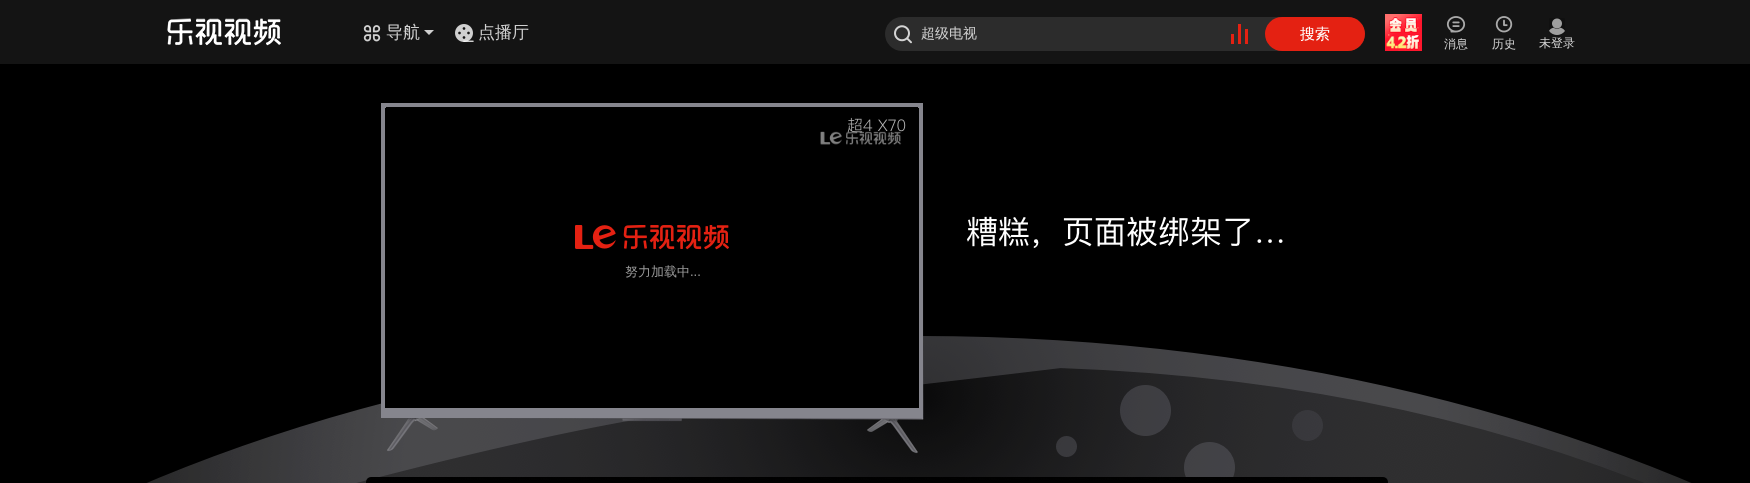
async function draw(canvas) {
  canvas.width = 1750;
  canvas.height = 483;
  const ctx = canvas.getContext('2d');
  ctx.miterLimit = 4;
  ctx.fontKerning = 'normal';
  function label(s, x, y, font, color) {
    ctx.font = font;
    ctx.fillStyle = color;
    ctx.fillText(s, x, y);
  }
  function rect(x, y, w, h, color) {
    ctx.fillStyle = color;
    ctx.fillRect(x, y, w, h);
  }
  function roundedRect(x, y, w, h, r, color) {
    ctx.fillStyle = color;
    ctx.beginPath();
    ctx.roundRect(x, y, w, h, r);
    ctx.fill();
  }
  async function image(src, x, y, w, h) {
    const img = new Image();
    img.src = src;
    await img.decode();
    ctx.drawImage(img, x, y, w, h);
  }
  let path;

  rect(0, 0, 1750, 483, '#141414');
  await image('assets/img1.png', 167, 18, 114, 28);
  await image('assets/img2.png', 363, 25, 18, 17);
  label('导航', 386, 38, '500 17px WenQuanYi Zen Hei', '#d0d0d0');
  path = new Path2D('M424 30H434L429 35Z');
  ctx.fill(path);
  await image('assets/img3.png', 455, 24, 19, 18);
  label('点播厅', 478, 38, '500 17px WenQuanYi Zen Hei', '#d0d0d0');
  roundedRect(885, 17, 480, 34, 17, '#2c2c2c');
  await image('assets/img4.png', 894, 25, 18, 19);
  label('超级电视', 921, 38, '500 14px WenQuanYi Zen Hei', '#d0d0d0');
  rect(1231, 34, 3, 10, '#e42112');
  rect(1238, 24, 3, 20, '#e42112');
  rect(1245, 29, 3, 15, '#e42112');
  roundedRect(1265, 17, 100, 34, 17, '#e42112');
  label('搜索', 1300, 39, '500 15px WenQuanYi Zen Hei', '#fff');
  await image('assets/img5.png', 1385, 14, 37, 37);
  await image('assets/img6.png', 1446, 16, 20, 17);
  label('消息', 1444, 48, '500 12px WenQuanYi Zen Hei', '#d0d0d0');
  await image('assets/img7.png', 1495, 16, 18, 17);
  label('历史', 1492, 48, '500 12px WenQuanYi Zen Hei', '#d0d0d0');
  await image('assets/img8.png', 1549, 18, 16, 17);
  label('未登录', 1539, 47, '500 12px WenQuanYi Zen Hei', '#d0d0d0');
  await image('assets/img9.png', 0, 64, 1750, 419);
  await image('assets/img11.png', 820, 131, 82, 14);
  await image('assets/img10.png', 847, 117, 59, 21);
  rect(386, 107, 532, 1, '#000');
  await image('assets/img12.png', 575, 225, 154, 25);
  label('努力加载中', 625, 276, '500 13px WenQuanYi Zen Hei', '#999');
  label('...', 690, 276, '13px Liberation Sans', '#999');
}

draw(document.querySelector('canvas'));
